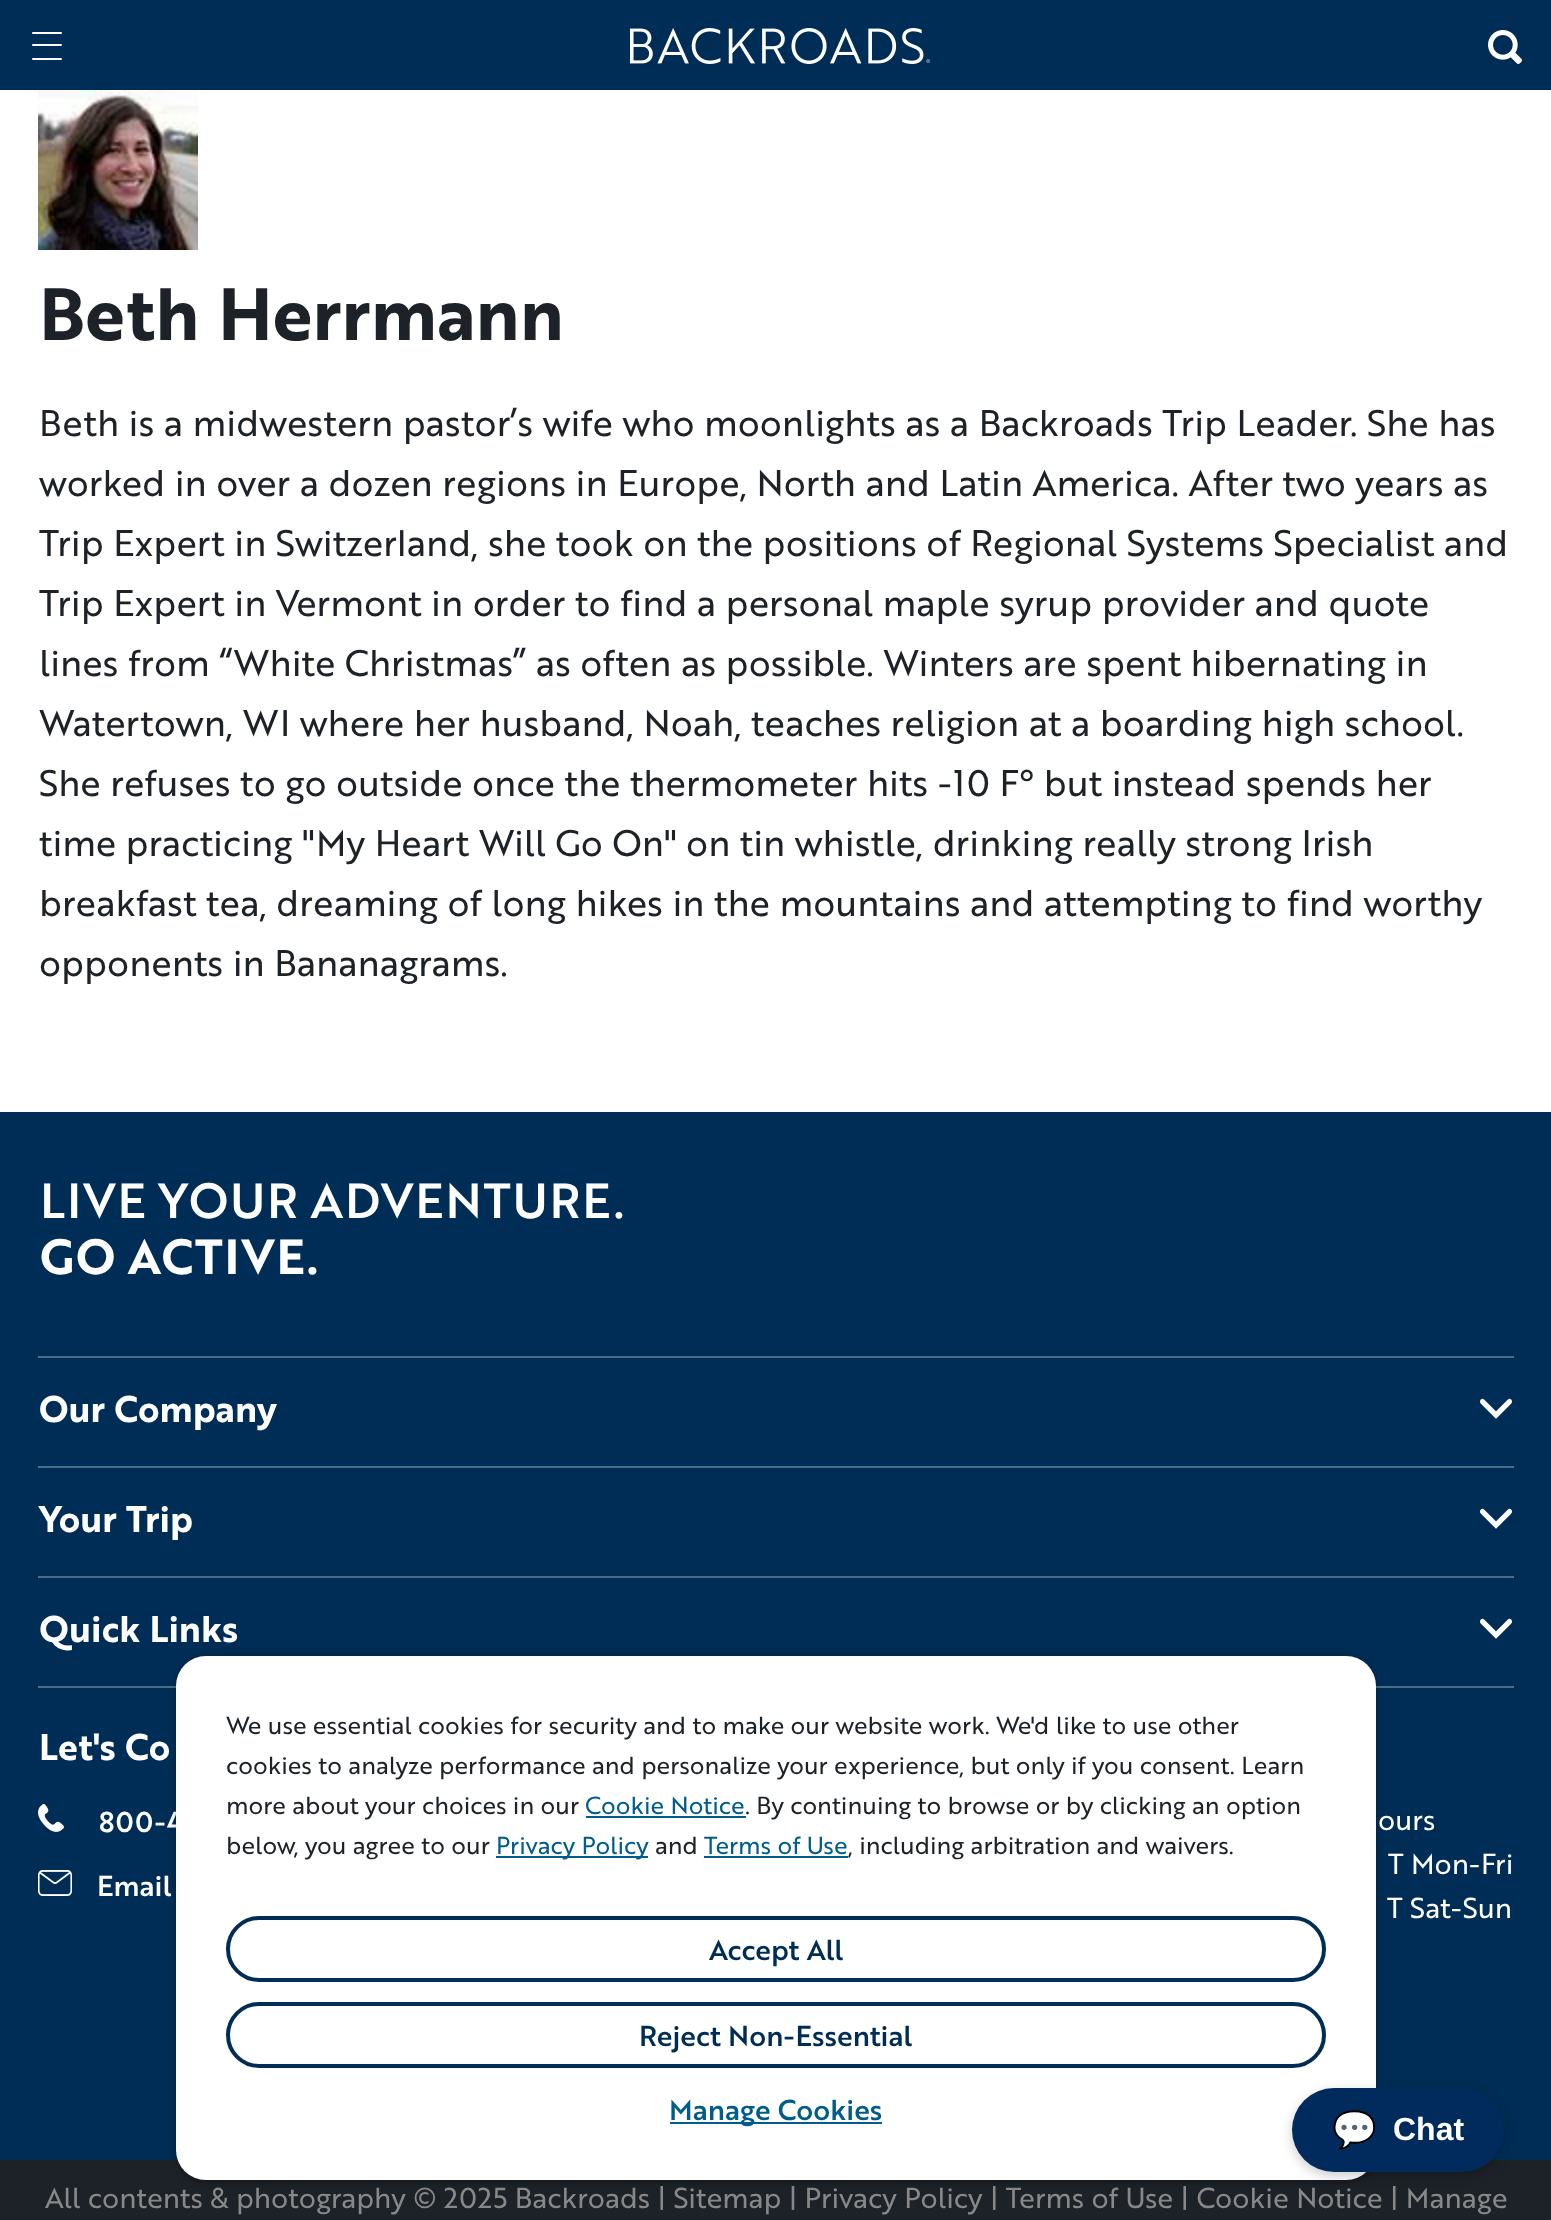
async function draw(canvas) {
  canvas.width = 1551;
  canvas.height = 2220;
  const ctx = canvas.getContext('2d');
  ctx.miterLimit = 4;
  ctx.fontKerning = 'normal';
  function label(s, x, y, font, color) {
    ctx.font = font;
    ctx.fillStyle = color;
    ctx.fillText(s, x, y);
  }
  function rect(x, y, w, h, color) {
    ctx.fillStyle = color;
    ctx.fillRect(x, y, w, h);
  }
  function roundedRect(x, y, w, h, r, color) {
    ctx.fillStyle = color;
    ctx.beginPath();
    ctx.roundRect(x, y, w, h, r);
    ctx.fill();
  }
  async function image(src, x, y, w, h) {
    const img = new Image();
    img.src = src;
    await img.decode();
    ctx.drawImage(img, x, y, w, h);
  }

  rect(0, 0, 1551, 2220, '#fff');
  rect(0, 0, 1551, 90, '#002d55');
  roundedRect(32, 32, 30, 2, 1, '#fff');
  roundedRect(32, 44, 30, 2, 1, '#fff');
  roundedRect(32, 58, 30, 2, 1, '#fff');
  await image('assets/img1.png', 630, 28, 300, 36);
  await image('assets/img2.png', 1488, 30, 34, 34);
  await image('assets/img3.png', 38, 90, 160, 160);
  label('Beth Herrmann', 39, 340, 'bold 72px "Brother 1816"', '#1c2227');
  label('Beth is a midwestern pastor’s wife who moonlights as a Backroads Trip Leader. She has', 39, 436, '36px "Brother 1816"', '#1c2227');
  label('worked in over a dozen regions in Europe, North and Latin America. After two years as', 39, 496, '36px "Brother 1816"', '#1c2227');
  label('Trip Expert in Switzerland, she took on the positions of Regional Systems Specialist and', 39, 556, '36px "Brother 1816"', '#1c2227');
  label('Trip Expert in Vermont in order to find a personal maple syrup provider and quote', 39, 616, '36px "Brother 1816"', '#1c2227');
  label('lines from “White Christmas” as often as possible. Winters are spent hibernating in', 39, 676, '36px "Brother 1816"', '#1c2227');
  label('Watertown, WI where her husband, Noah, teaches religion at a boarding high school.', 39, 736, '36px "Brother 1816"', '#1c2227');
  label('She refuses to go outside once the thermometer hits -10 F° but instead spends her', 39, 796, '36px "Brother 1816"', '#1c2227');
  label('time practicing "My Heart Will Go On" on tin whistle, drinking really strong Irish', 39, 856, '36px "Brother 1816"', '#1c2227');
  label('breakfast tea, dreaming of long hikes in the mountains and attempting to find worthy', 39, 916, '36px "Brother 1816"', '#1c2227');
  label('opponents in Bananagrams.', 39, 976, '36px "Brother 1816"', '#1c2227');
  rect(0, 1112, 1551, 1048, '#002d55');
  label('LIVE YOUR ADVENTURE.', 40, 1218, '500 48px "Brother 1816"', '#fff');
  label('GO ACTIVE.', 40, 1274, 'bold 48px "Brother 1816"', '#fff');
  rect(38, 1356, 1476, 2, '#4c6c88');
  label('Our Company', 39, 1422, 'bold 36px "Brother 1816"', '#fff');
  await image('assets/img4.png', 1480, 1398, 32, 21);
  rect(38, 1466, 1476, 2, '#4c6c88');
  label('Your Trip', 39, 1532, 'bold 36px "Brother 1816"', '#fff');
  await image('assets/img4.png', 1480, 1508, 32, 21);
  rect(38, 1576, 1476, 2, '#4c6c88');
  label('Quick Links', 39, 1642, 'bold 36px "Brother 1816"', '#fff');
  await image('assets/img4.png', 1480, 1618, 32, 21);
  rect(38, 1686, 1476, 2, '#4c6c88');
  label('Let\'s Co', 39, 1760, 'bold 36px "Brother 1816"', '#fff');
  await image('assets/img5.png', 38, 1804, 26, 28);
  label('800-4', 99, 1832, '500 28px "Brother 1816"', '#fff');
  await image('assets/img6.png', 38, 1870, 34, 26);
  label('Email', 97, 1896, '500 28px "Brother 1816"', '#fff');
  label('ours', 1378, 1830, '28px "Brother 1816"', '#fff');
  label('T Mon-Fri', 1388, 1874, '28px "Brother 1816"', '#fff');
  label('T Sat-Sun', 1387, 1918, '28px "Brother 1816"', '#fff');
  rect(0, 2160, 1551, 60, '#1c2227');
  label('All contents & photography © 2025 Backroads | Sitemap | Privacy Policy | Terms of Use | Cookie Notice | Manage', 45, 2208, '28px "Brother 1816"', '#888');
  ctx.fillStyle = '#00000014';
  ctx.filter = 'blur(3px)';
  ctx.beginPath();
  ctx.roundRect(176, 1654, 1200, 524, 30);
  ctx.fill();
  ctx.filter = 'none';
  ctx.fillStyle = '#0000002b';
  ctx.filter = 'blur(3px)';
  ctx.beginPath();
  ctx.roundRect(176, 1660, 1200, 524, 30);
  ctx.fill();
  ctx.filter = 'none';
  roundedRect(176, 1656, 1200, 524, 30, '#fff');
  label('We use essential cookies for security and to make our website work. We\'d like to use other', 226, 1734, '24px "Brother 1816"', '#1c2227');
  label('cookies to analyze performance and personalize your experience, but only if you consent. Learn', 226, 1774, '24px "Brother 1816"', '#1c2227');
  label('more about your choices in our', 226, 1814, '24px "Brother 1816"', '#1c2227');
  label('Cookie Notice', 585, 1814, '24px "Brother 1816"', '#005c8a');
  rect(586, 1816, 160, 2, '#005c8a');
  label('. By continuing to browse or by clicking an option', 745, 1814, '24px "Brother 1816"', '#1c2227');
  label('below, you agree to our', 226, 1854, '24px "Brother 1816"', '#1c2227');
  rect(496, 1856, 152, 2, '#005c8a');
  label('Privacy Policy', 496, 1854, '24px "Brother 1816"', '#005c8a');
  label('and', 655, 1854, '24px "Brother 1816"', '#1c2227');
  label('Terms of Use', 704, 1854, '24px "Brother 1816"', '#005c8a');
  rect(704, 1856, 144, 2, '#005c8a');
  label(', including arbitration and waivers.', 848, 1854, '24px "Brother 1816"', '#1c2227');
  ctx.beginPath();
  ctx.roundRect(228, 1918, 1096, 62, 31);
  ctx.strokeStyle = '#002d55';
  ctx.lineWidth = 4;
  ctx.stroke();
  label('Accept All', 709, 1960, '500 28px "Brother 1816"', '#002d55');
  ctx.beginPath();
  ctx.roundRect(228, 2004, 1096, 62, 31);
  ctx.stroke();
  label('Reject Non-Essential', 639, 2046, '500 28px "Brother 1816"', '#002d55');
  rect(670, 2122, 212, 2, '#005c8a');
  label('Manage Cookies', 669, 2120, '500 28px "Brother 1816"', '#005c8a');
  ctx.fillStyle = '#00000033';
  ctx.filter = 'blur(6px)';
  ctx.beginPath();
  ctx.roundRect(1292, 2092, 212, 84, 42);
  ctx.fill();
  ctx.filter = 'none';
  roundedRect(1292, 2088, 212, 84, 42, '#002b5c');
  label('💬', 1332, 2142, 'bold 36px Noto Color Emoji', '#fff');
  label('Chat', 1393, 2140, 'bold 32px Liberation Sans', '#fff');
}

draw(document.querySelector('canvas'));
